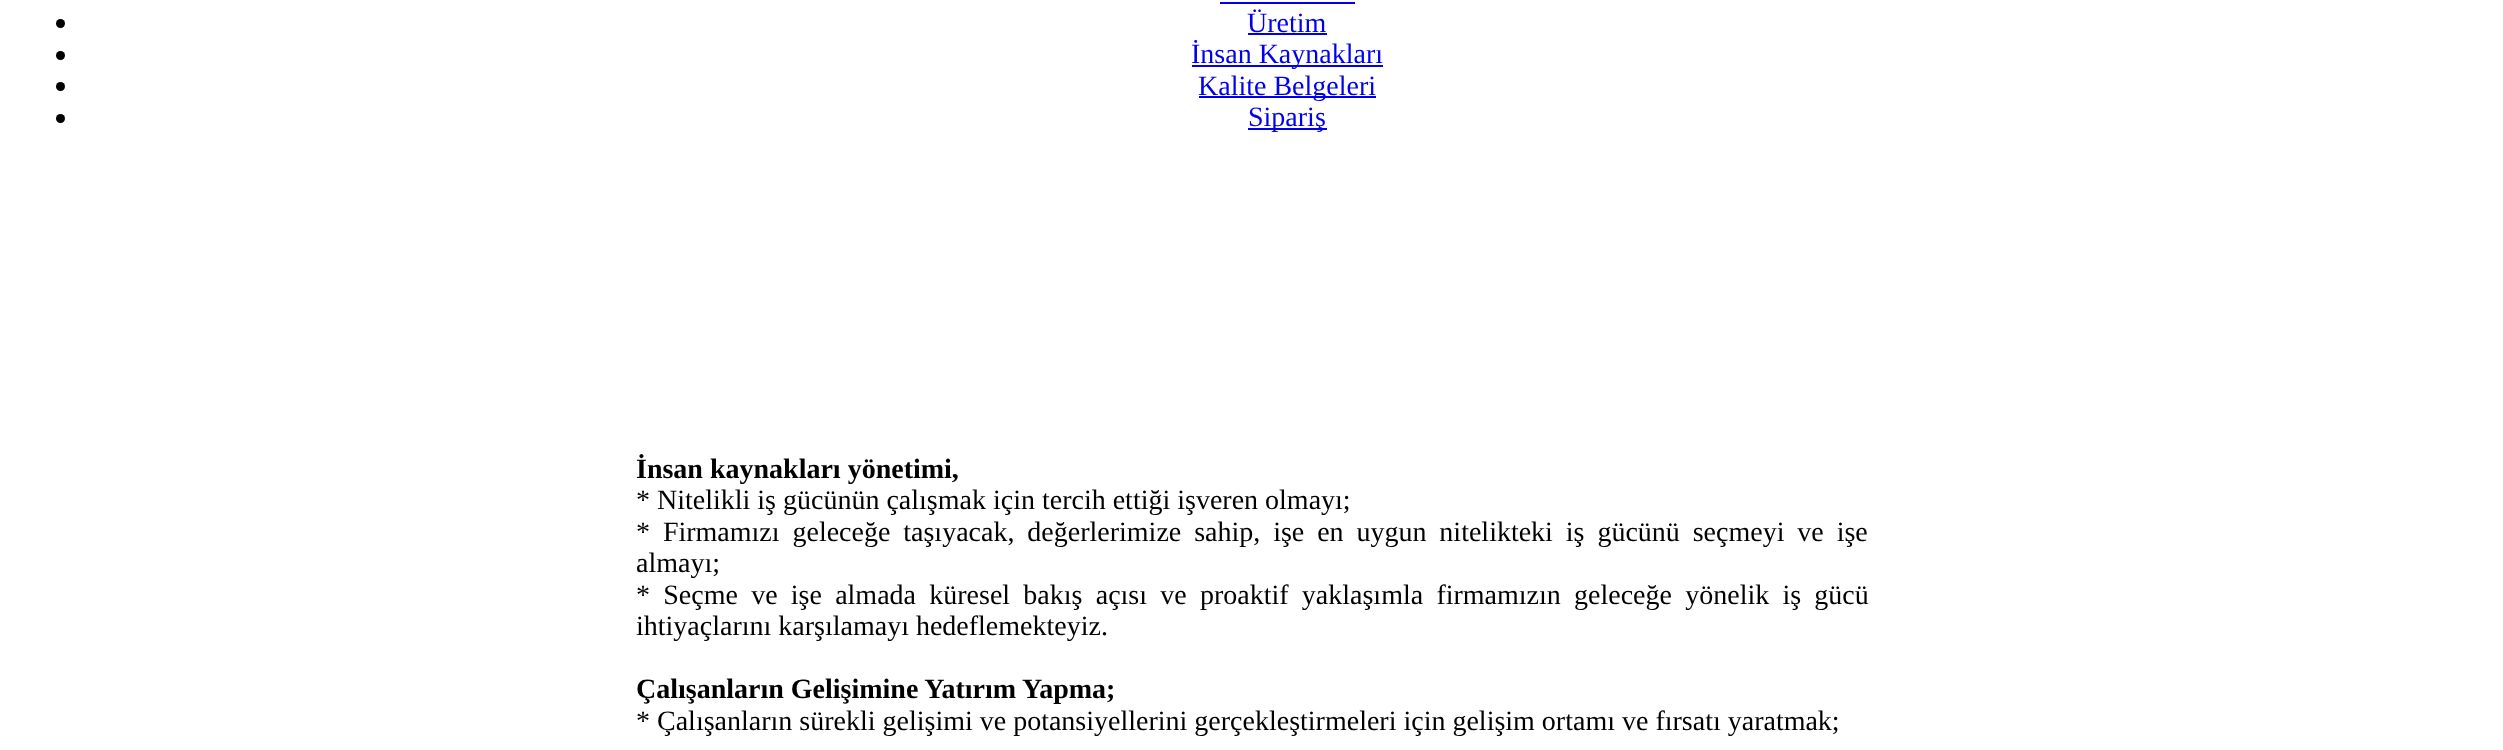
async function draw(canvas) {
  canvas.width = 2503;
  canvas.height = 750;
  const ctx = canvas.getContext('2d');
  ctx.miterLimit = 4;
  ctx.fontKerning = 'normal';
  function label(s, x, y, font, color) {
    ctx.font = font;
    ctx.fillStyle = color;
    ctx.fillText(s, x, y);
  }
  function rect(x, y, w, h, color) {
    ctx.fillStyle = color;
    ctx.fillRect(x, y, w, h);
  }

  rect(0, 0, 2503, 750, '#fff');
  rect(1220, 2, 135, 2, '#00e');
  ctx.fillStyle = '#000';
  ctx.beginPath();
  ctx.arc(60.5, 23.5, 4.5, 0, 2 * Math.PI);
  ctx.fill();
  label('Üretim', 1247, 32, '28px Liberation Serif', '#00e');
  rect(1248, 33, 79, 2, '#00e');
  ctx.fillStyle = '#000';
  ctx.beginPath();
  ctx.arc(60.5, 55.5, 4.5, 0, 2 * Math.PI);
  ctx.fill();
  rect(1192, 65, 191, 2, '#00e');
  label('İnsan Kaynakları', 1191, 63, '28px Liberation Serif', '#00e');
  ctx.fillStyle = '#000';
  ctx.beginPath();
  ctx.arc(60.5, 86.5, 4.5, 0, 2 * Math.PI);
  ctx.fill();
  rect(1199, 96, 177, 2, '#00e');
  label('Kalite Belgeleri', 1198, 95, '28px Liberation Serif', '#00e');
  ctx.fillStyle = '#000';
  ctx.beginPath();
  ctx.arc(60.5, 118.5, 4.5, 0, 2 * Math.PI);
  ctx.fill();
  rect(1248, 128, 79, 2, '#00e');
  label('Sipariş', 1248, 126, '28px Liberation Serif', '#00e');
  label('İnsan kaynakları yönetimi,', 636, 478, 'bold 28px Liberation Serif', '#000');
  label('* Nitelikli iş gücünün çalışmak için tercih ettiği işveren olmayı;', 636, 509, '28px Liberation Serif', '#000');
  ctx.wordSpacing = '5.9px';
  label('* Firmamızı geleceğe taşıyacak, değerlerimize sahip, işe en uygun nitelikteki iş gücünü seçmeyi ve işe', 636, 541, '28px Liberation Serif', '#000');
  ctx.wordSpacing = '0px';
  label('almayı;', 636, 572, '28px Liberation Serif', '#000');
  ctx.wordSpacing = '6.25px';
  label('* Seçme ve işe almada küresel bakış açısı ve proaktif yaklaşımla firmamızın geleceğe yönelik iş gücü', 636, 604, '28px Liberation Serif', '#000');
  ctx.wordSpacing = '0px';
  label('ihtiyaçlarını karşılamayı hedeflemekteyiz.', 636, 635, '28px Liberation Serif', '#000');
  label('Çalışanların Gelişimine Yatırım Yapma;', 636, 698, 'bold 28px Liberation Serif', '#000');
  label('* Çalışanların sürekli gelişimi ve potansiyellerini gerçekleştirmeleri için gelişim ortamı ve fırsatı yaratmak;', 636, 730, '28px Liberation Serif', '#000');
}

draw(document.querySelector('canvas'));
